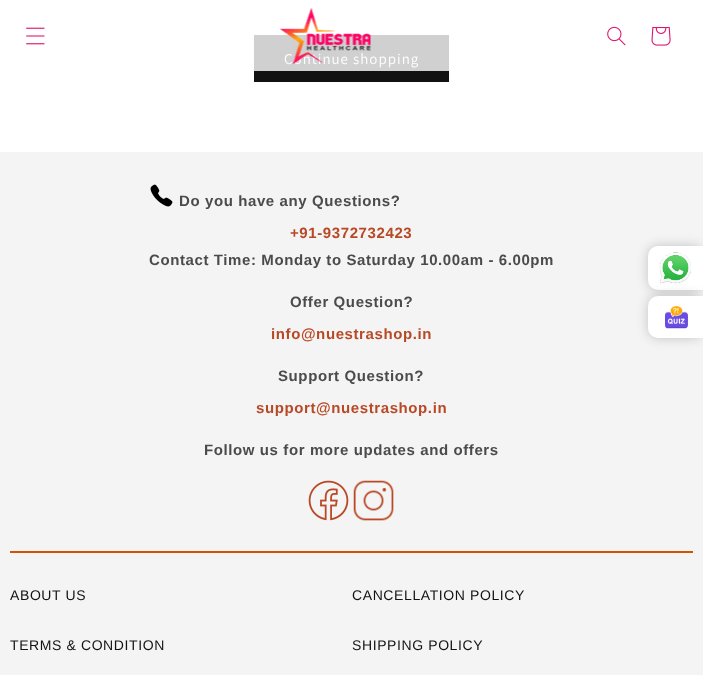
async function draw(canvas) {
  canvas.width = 703;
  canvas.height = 675;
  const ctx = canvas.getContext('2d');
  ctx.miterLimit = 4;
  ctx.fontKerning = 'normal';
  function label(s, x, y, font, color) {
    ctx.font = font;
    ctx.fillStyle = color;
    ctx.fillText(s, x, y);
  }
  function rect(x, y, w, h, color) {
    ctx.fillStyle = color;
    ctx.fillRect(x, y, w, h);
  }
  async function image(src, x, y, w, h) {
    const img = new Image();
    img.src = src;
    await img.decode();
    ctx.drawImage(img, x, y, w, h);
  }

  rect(0, 0, 703, 675, '#fff');
  await image('assets/img1.png', 26, 27, 19, 18);
  rect(254, 35, 195, 36, '#d0d0d0');
  ctx.letterSpacing = '1px';
  label('Continue shopping', 284, 64, '15px Assistant', '#fff');
  await image('assets/img2.png', 280, 8, 91, 56);
  await image('assets/img3.png', 607, 26, 19, 20);
  await image('assets/img4.png', 651, 27, 20, 19);
  rect(254, 71, 195, 11, '#121212');
  rect(0, 152, 703, 523, '#f4f4f4');
  await image('assets/img5.png', 150, 184, 23, 23);
  ctx.letterSpacing = '0.6px';
  label('Do you have any Questions?', 179, 206, 'bold 15px Liberation Sans', '#4b4b4b');
  label('+91-9372732423', 290, 238, 'bold 15px Liberation Sans', '#b84926');
  label('Contact Time: Monday to Saturday 10.00am - 6.00pm', 149, 265, 'bold 15px Liberation Sans', '#4b4b4b');
  label('Offer Question?', 290, 307, 'bold 15px Liberation Sans', '#4b4b4b');
  label('info@nuestrashop.in', 271, 339, 'bold 15px Liberation Sans', '#b84926');
  label('Support Question?', 278, 381, 'bold 15px Liberation Sans', '#4b4b4b');
  label('support@nuestrashop.in', 256, 413, 'bold 15px Liberation Sans', '#b84926');
  label('Follow us for more updates and offers', 204, 455, 'bold 15px Liberation Sans', '#4b4b4b');
  await image('assets/img6.png', 308, 480, 41, 41);
  await image('assets/img7.png', 353, 480, 41, 41);
  rect(10, 551, 683, 2, '#d35400');
  label('ABOUT US', 10, 600, '14px Liberation Sans', '#121212');
  label('TERMS & CONDITION', 10, 650, '14px Liberation Sans', '#121212');
  label('CANCELLATION POLICY', 352, 600, '14px Liberation Sans', '#121212');
  label('SHIPPING POLICY', 352, 650, '14px Liberation Sans', '#121212');
  ctx.fillStyle = '#00000033';
  ctx.filter = 'blur(6px)';
  ctx.beginPath();
  ctx.roundRect(648, 246, 55, 44, 10);
  ctx.fill();
  ctx.filter = 'none';
  ctx.fillStyle = '#fff';
  ctx.beginPath();
  ctx.roundRect(648, 246, 55, 44, [10, 0, 0, 10]);
  ctx.fill();
  await image('assets/img8.png', 659, 252, 32, 32);
  ctx.fillStyle = '#00000033';
  ctx.filter = 'blur(6px)';
  ctx.beginPath();
  ctx.roundRect(648, 296, 55, 42, 10);
  ctx.fill();
  ctx.filter = 'none';
  ctx.fillStyle = '#fff';
  ctx.beginPath();
  ctx.roundRect(648, 296, 55, 42, [10, 0, 0, 10]);
  ctx.fill();
  await image('assets/img9.png', 665, 306, 23, 23);
}

draw(document.querySelector('canvas'));
